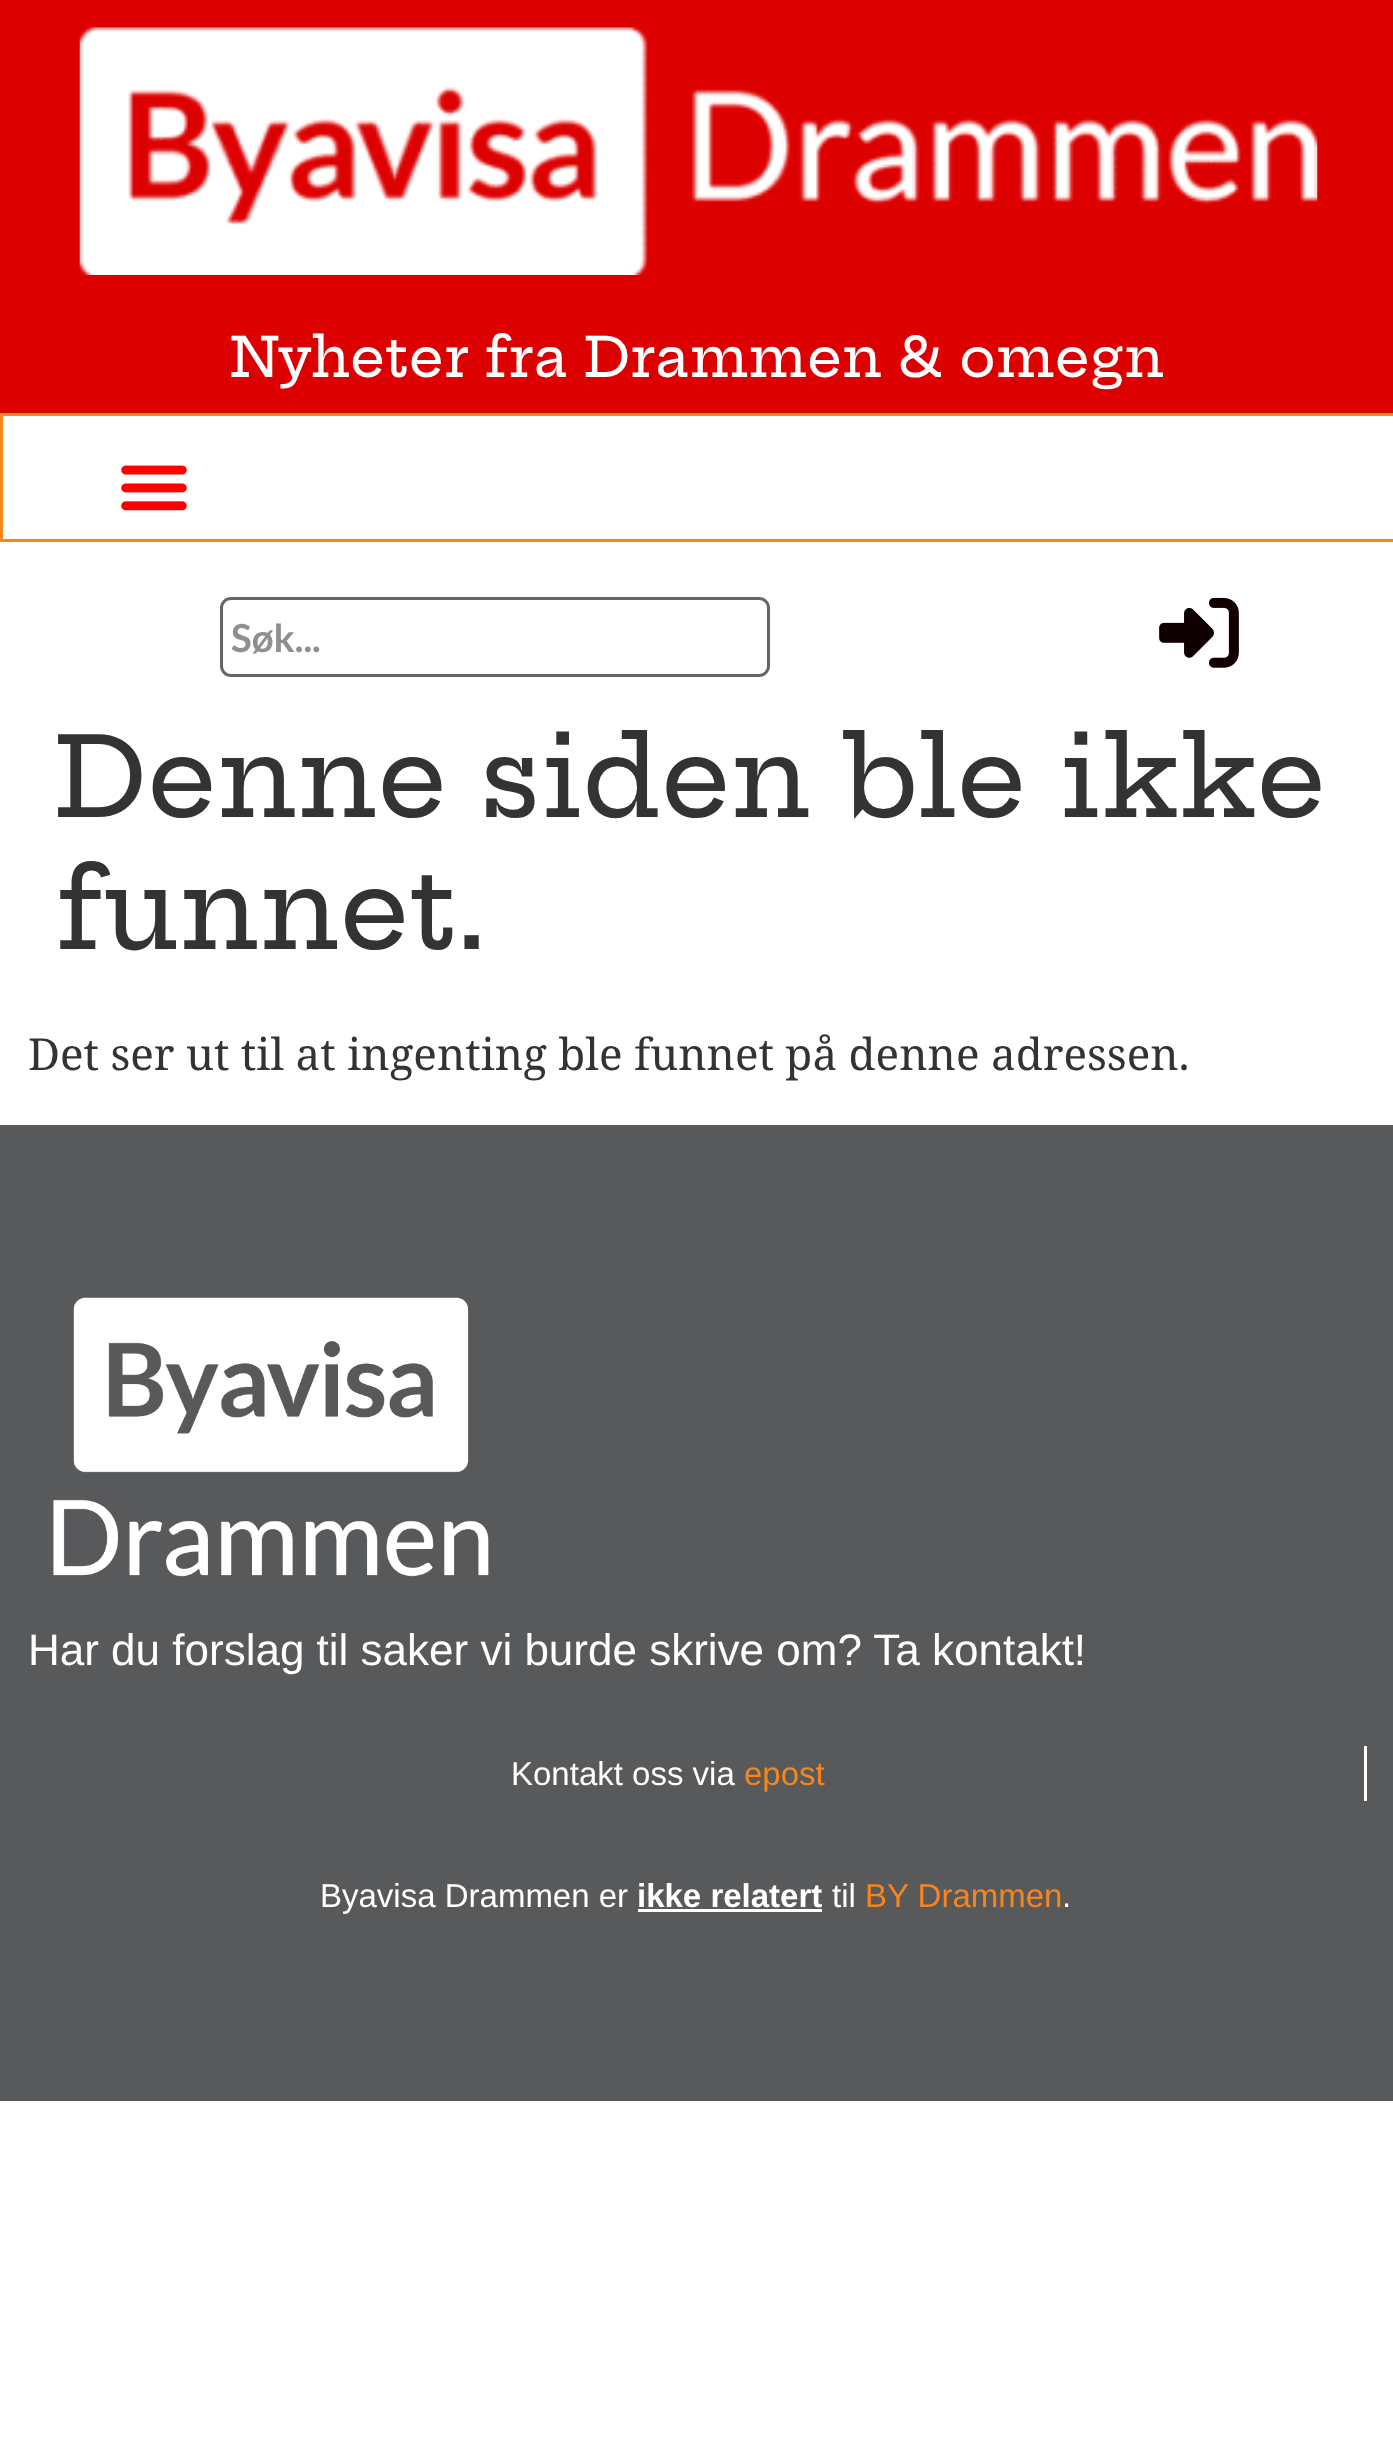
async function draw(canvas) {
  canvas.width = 1393;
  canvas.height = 2444;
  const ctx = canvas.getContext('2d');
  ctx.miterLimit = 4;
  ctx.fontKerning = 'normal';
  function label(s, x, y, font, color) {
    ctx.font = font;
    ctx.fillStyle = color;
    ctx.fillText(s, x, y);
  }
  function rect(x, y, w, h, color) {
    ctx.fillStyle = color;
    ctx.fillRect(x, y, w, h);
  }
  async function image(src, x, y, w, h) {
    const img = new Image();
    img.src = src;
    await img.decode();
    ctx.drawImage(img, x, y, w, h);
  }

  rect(0, 0, 1393, 2444, '#fff');
  rect(0, 0, 1393, 413, '#d00');
  await image('assets/img1.png', 79, 27, 1239, 248);
  label('Nyheter fra Drammen & omegn', 230, 377, '500 55px Hepta Slab', '#fff');
  rect(0, 413, 1393, 3, '#f6851f');
  rect(0, 539, 1393, 3, '#f6851f');
  rect(0, 413, 3, 129, '#f6851f');
  await image('assets/img2.png', 121, 465, 66, 46);
  ctx.beginPath();
  ctx.roundRect(221.5, 598.5, 547, 77, 9.5);
  ctx.strokeStyle = '#666';
  ctx.lineWidth = 3;
  ctx.stroke();
  label('Søk...', 231, 652, 'bold 38.5px Lato', '#8f8f8f');
  await image('assets/img3.png', 1159, 597, 80, 71);
  label('Denne siden ble ikke', 55, 817, '500 110px Hepta Slab', '#333');
  label('funnet.', 55, 949, '500 110px Hepta Slab', '#333');
  label('Det ser ut til at ingenting ble funnet på denne adressen.', 28, 1070, '44px Noto Serif', '#333');
  rect(0, 1125, 1393, 976, '#58595b');
  await image('assets/img4.png', 53, 1297, 436, 280);
  label('Har du forslag til saker vi burde skrive om? Ta kontakt!', 28, 1665, '44px Liberation Sans', '#fff');
  rect(1364, 1746, 3, 55, '#fff');
  label('Kontakt oss via', 511, 1785, '33px Liberation Sans', '#fff');
  label('epost', 744, 1785, '33px Liberation Sans', '#f6851f');
  label('Byavisa Drammen er', 320, 1907, '33px Liberation Sans', '#fff');
  label('ikke relatert', 637, 1907, 'bold 33px Liberation Sans', '#fff');
  rect(638, 1909, 184, 3, '#fff');
  label('til', 832, 1907, '33px Liberation Sans', '#fff');
  label('BY Drammen', 865, 1907, '33px Liberation Sans', '#f6851f');
  label('.', 1062, 1907, '33px Liberation Sans', '#fff');
}

draw(document.querySelector('canvas'));
